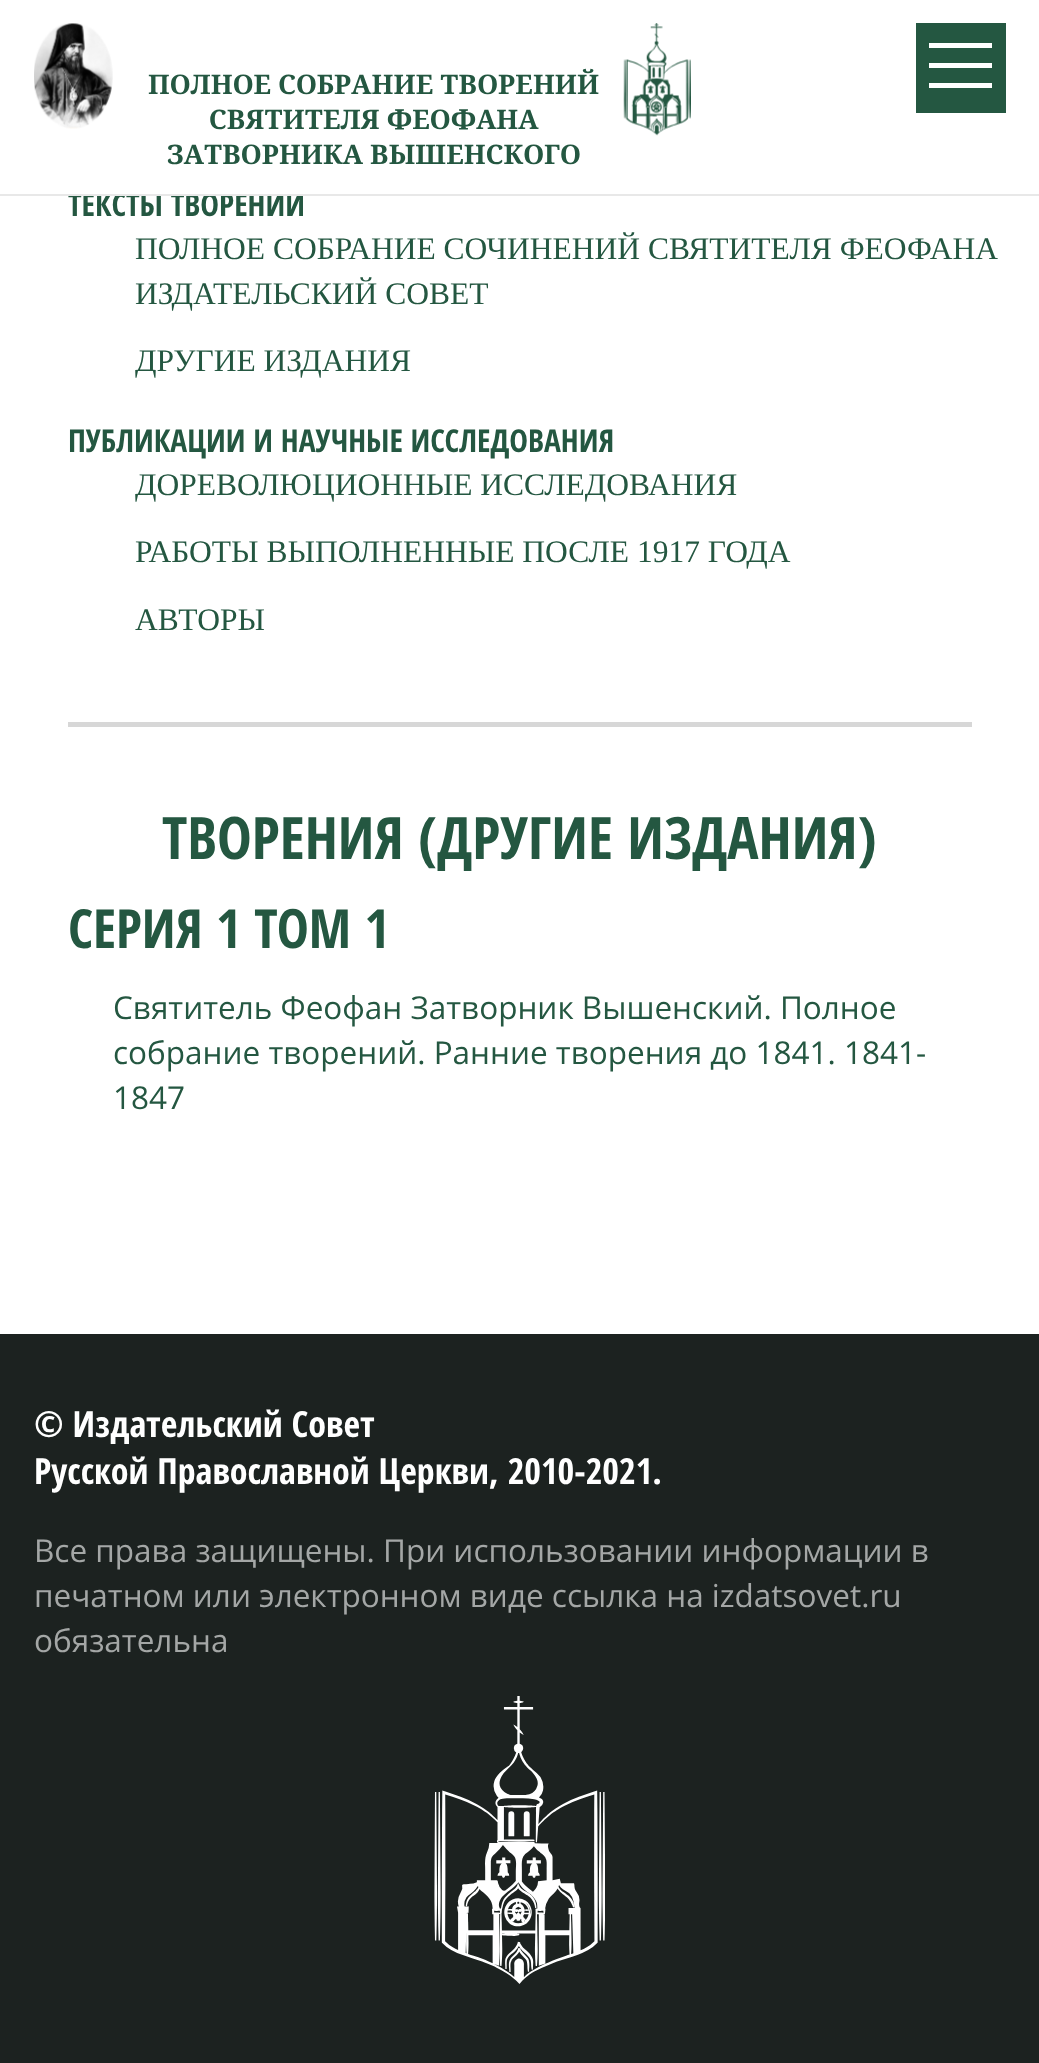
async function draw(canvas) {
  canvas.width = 1039;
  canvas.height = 2063;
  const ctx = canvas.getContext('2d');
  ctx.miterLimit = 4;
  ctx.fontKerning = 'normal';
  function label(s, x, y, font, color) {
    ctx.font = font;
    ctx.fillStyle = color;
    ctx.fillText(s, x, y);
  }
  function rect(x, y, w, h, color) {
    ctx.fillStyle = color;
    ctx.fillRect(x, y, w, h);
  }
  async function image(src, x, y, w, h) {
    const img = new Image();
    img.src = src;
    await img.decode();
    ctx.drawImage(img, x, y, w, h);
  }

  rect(0, 0, 1039, 2063, '#fff');
  label('ТЕКСТЫ ТВОРЕНИЙ', 68, 216, 'bold 31.5px Open Sans Condensed', '#245741');
  rect(67, 186, 236, 8, '#fff');
  rect(0, 194, 1039, 2, '#e8e8e8');
  await image('assets/img1.png', 34, 23, 79, 106);
  label('ПОЛНОЕ СОБРАНИЕ ТВОРЕНИЙ', 148, 94, 'bold 27px Noto Serif', '#245741');
  label('СВЯТИТЕЛЯ ФЕОФАНА', 209, 129, 'bold 27px Noto Serif', '#245741');
  label('ЗАТВОРНИКА ВЫШЕНСКОГО', 167, 164, 'bold 27px Noto Serif', '#245741');
  rect(916, 23, 90, 90, '#245741');
  rect(929, 63, 63, 5, '#fff');
  rect(929, 43, 63, 5, '#fff');
  rect(929, 83, 63, 5, '#fff');
  await image('assets/img2.png', 623, 23, 68, 113);
  label('ПОЛНОЕ СОБРАНИЕ СОЧИНЕНИЙ СВЯТИТЕЛЯ ФЕОФАНА', 135, 259, '31.5px Liberation Serif', '#245741');
  label('ИЗДАТЕЛЬСКИЙ СОВЕТ', 135, 304, '31.5px Liberation Serif', '#245741');
  label('ДРУГИЕ ИЗДАНИЯ', 135, 371, '31.5px Liberation Serif', '#245741');
  label('ПУБЛИКАЦИИ И НАУЧНЫЕ ИССЛЕДОВАНИЯ', 68, 452, 'bold 31.5px Open Sans Condensed', '#245741');
  label('ДОРЕВОЛЮЦИОННЫЕ ИССЛЕДОВАНИЯ', 135, 495, '31.5px Liberation Serif', '#245741');
  label('РАБОТЫ ВЫПОЛНЕННЫЕ ПОСЛЕ 1917 ГОДА', 135, 562, '31.5px Liberation Serif', '#245741');
  label('АВТОРЫ', 135, 630, '31.5px Liberation Serif', '#245741');
  rect(68, 722, 904, 5, '#d7d7d7');
  label('ТВОРЕНИЯ (ДРУГИЕ ИЗДАНИЯ)', 162, 859, 'bold 58.5px Open Sans Condensed', '#245741');
  label('СЕРИЯ 1 ТОМ 1', 68, 948, 'bold 54px Open Sans Condensed', '#245741');
  label('Святитель Феофан Затворник Вышенский. Полное', 113, 1019, '31.5px Open Sans', '#245741');
  label('собрание творений. Ранние творения до 1841. 1841-', 113, 1064, '31.5px Open Sans', '#245741');
  label('1847', 113, 1109, '31.5px Open Sans', '#245741');
  rect(0, 1334, 1039, 729, '#1c2220');
  label('© Издательский Совет', 34, 1437, 'bold 36px Open Sans Condensed', '#fff');
  label('Русской Православной Церкви, 2010-2021.', 34, 1484, 'bold 36px Open Sans Condensed', '#fff');
  label('Все права защищены. При использовании информации в', 34, 1562, '31.5px Open Sans', '#a4a7a6');
  label('печатном или электронном виде ссылка на izdatsovet.ru', 34, 1607, '31.5px Open Sans', '#a4a7a6');
  label('обязательна', 34, 1652, '31.5px Open Sans', '#a4a7a6');
  await image('assets/img3.png', 434, 1696, 171, 288);
}

draw(document.querySelector('canvas'));
